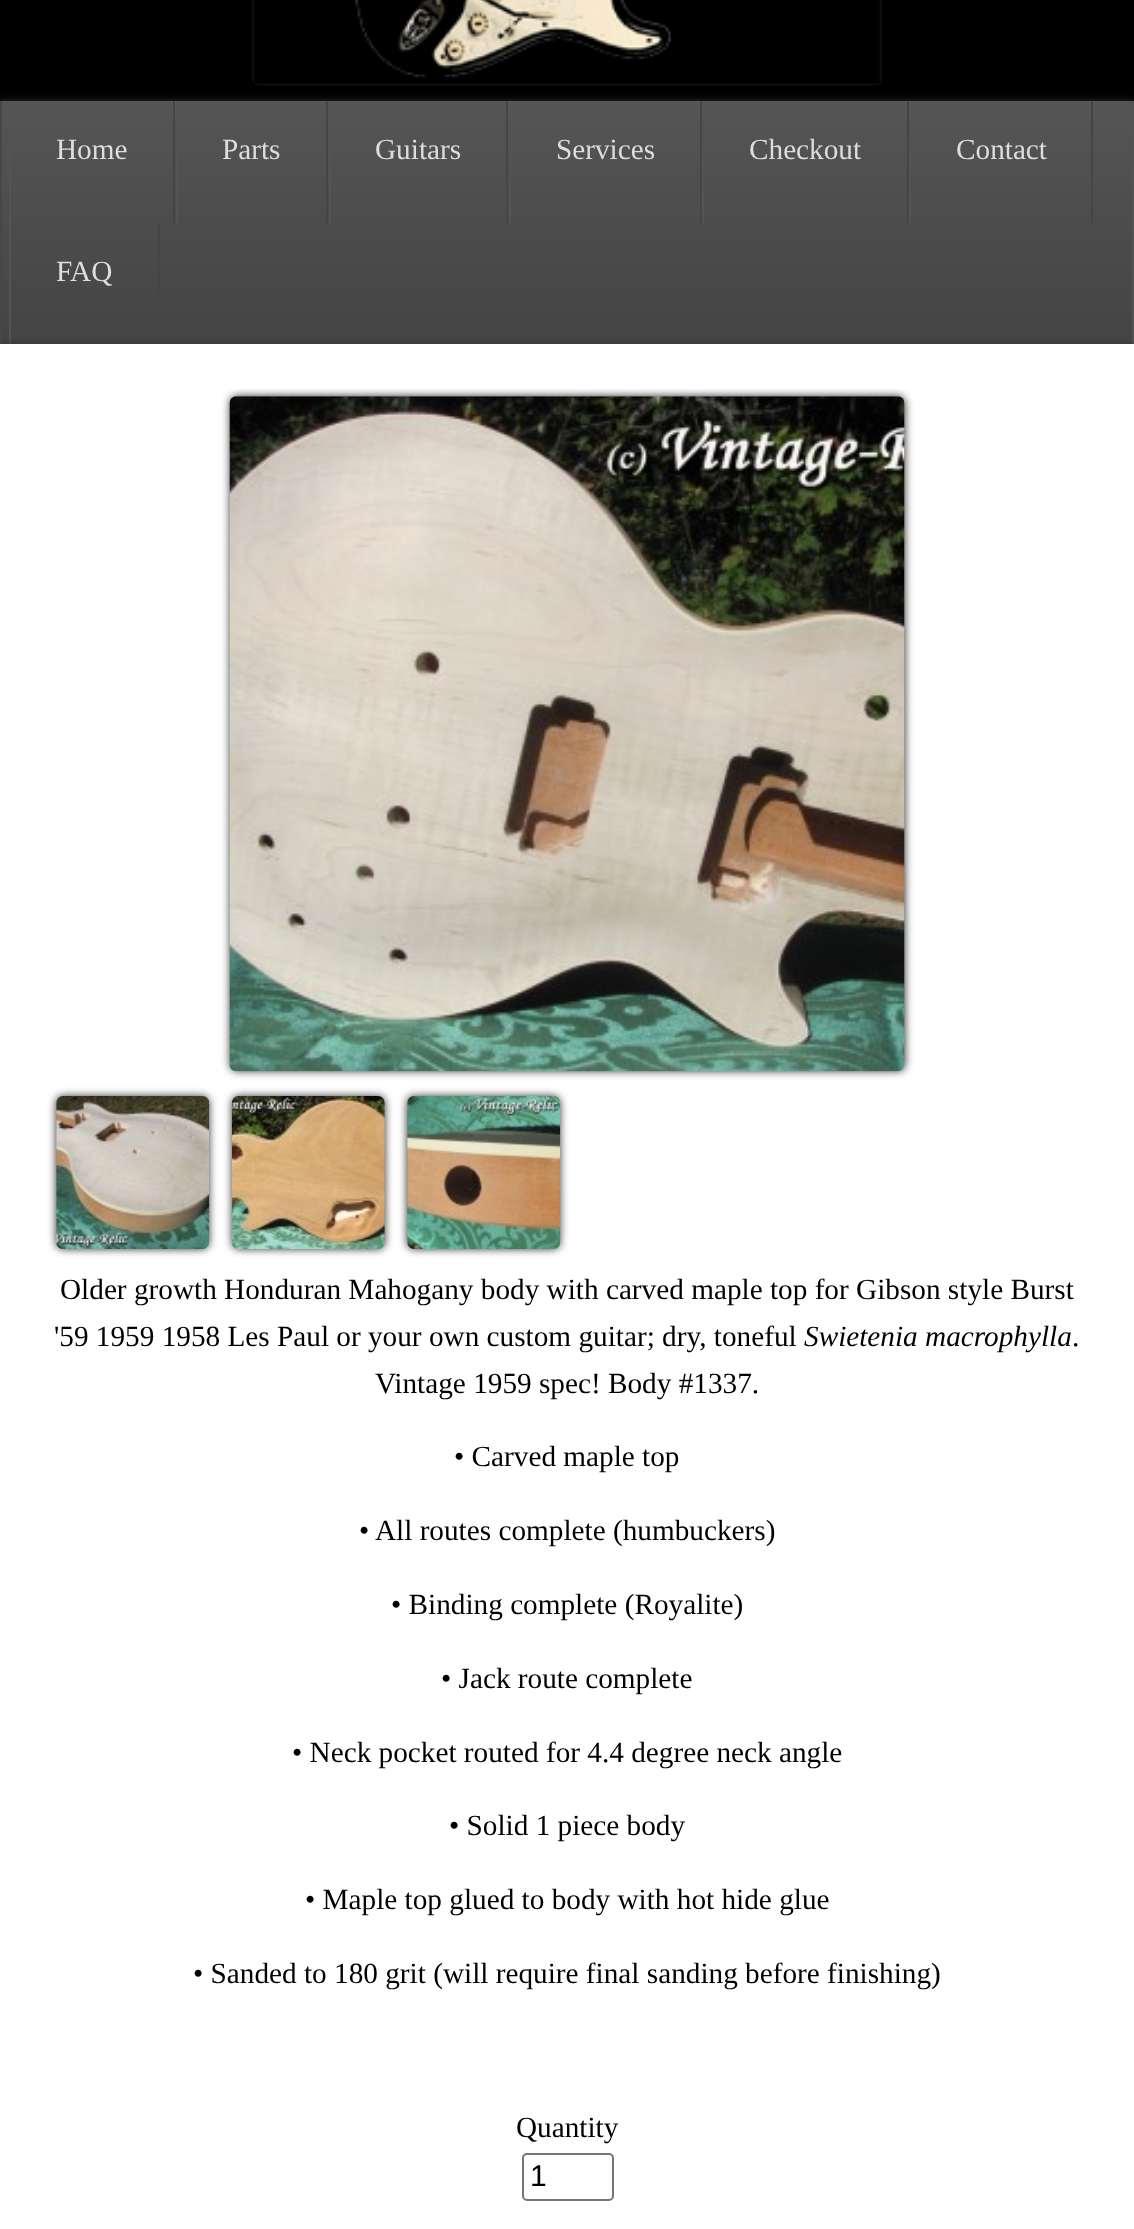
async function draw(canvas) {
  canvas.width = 1134;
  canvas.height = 2229;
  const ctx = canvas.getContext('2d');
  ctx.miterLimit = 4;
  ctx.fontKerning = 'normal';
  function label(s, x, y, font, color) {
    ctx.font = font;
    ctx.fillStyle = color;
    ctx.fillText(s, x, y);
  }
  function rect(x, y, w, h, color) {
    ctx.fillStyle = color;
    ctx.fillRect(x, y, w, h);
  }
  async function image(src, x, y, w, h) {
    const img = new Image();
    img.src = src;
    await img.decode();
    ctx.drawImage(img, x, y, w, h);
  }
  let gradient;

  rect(0, 0, 1134, 2229, '#000');
  await image('assets/img1.png', 252, 0, 630, 86);
  ctx.fillStyle = '#333';
  ctx.filter = 'blur(3.5px)';
  ctx.beginPath();
  ctx.rect(0, 101, 1134, 243);
  ctx.fill();
  ctx.filter = 'none';
  gradient = ctx.createLinearGradient(0, 101, 0, 344);
  gradient.addColorStop(0, '#555');
  gradient.addColorStop(1, '#444');
  ctx.fillStyle = gradient;
  ctx.fillRect(2, 101, 1130, 243);
  rect(1132, 101, 2, 243, '#545454');
  rect(0, 101, 2, 243, '#474747');
  rect(173, 101, 2, 122, '#454545');
  rect(9, 151, 2, 193, '#545454');
  label('Home', 56, 159, '29.25px Liberation Serif', '#ddd');
  rect(326, 101, 2, 122, '#454545');
  rect(176, 151, 2, 72, '#545454');
  label('Parts', 222, 159, '29.25px Liberation Serif', '#ddd');
  rect(506, 101, 2, 122, '#454545');
  rect(329, 151, 2, 72, '#545454');
  label('Guitars', 375, 159, '29.25px Liberation Serif', '#ddd');
  rect(700, 101, 2, 122, '#454545');
  rect(509, 151, 2, 72, '#545454');
  label('Services', 556, 159, '29.25px Liberation Serif', '#ddd');
  rect(907, 101, 2, 122, '#454545');
  rect(702, 151, 2, 72, '#545454');
  label('Checkout', 749, 159, '29.25px Liberation Serif', '#ddd');
  rect(1091, 101, 2, 122, '#454545');
  rect(909, 151, 2, 72, '#545454');
  label('Contact', 956, 159, '29.25px Liberation Serif', '#ddd');
  rect(158, 223, 2, 71, '#454545');
  label('FAQ', 56, 281, '29.25px Liberation Serif', '#ddd');
  ctx.fillStyle = '#333';
  ctx.filter = 'blur(3.5px)';
  ctx.beginPath();
  ctx.rect(0, 344, 1134, 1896);
  ctx.fill();
  ctx.filter = 'none';
  rect(0, 344, 1134, 1885, '#fff');
  ctx.save();
  ctx.beginPath();
  ctx.rect(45, 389, 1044, 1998);
  ctx.clip();
  ctx.fillStyle = '#333';
  ctx.filter = 'blur(4.5px)';
  ctx.beginPath();
  ctx.roundRect(230, 396, 675, 675, 7);
  ctx.fill();
  ctx.filter = 'none';
  ctx.restore();
  await image('assets/img2.png', 229, 396, 676, 676);
  ctx.fillStyle = '#333';
  ctx.filter = 'blur(4.5px)';
  ctx.beginPath();
  ctx.roundRect(56, 1096, 153, 153, 7);
  ctx.fill();
  ctx.filter = 'none';
  await image('assets/img3.png', 56, 1096, 154, 153);
  ctx.filter = 'blur(4.5px)';
  ctx.beginPath();
  ctx.roundRect(232, 1096, 153, 153, 7);
  ctx.fill();
  ctx.filter = 'none';
  await image('assets/img4.png', 231, 1096, 154, 153);
  ctx.filter = 'blur(4.5px)';
  ctx.beginPath();
  ctx.roundRect(407, 1096, 153, 153, 7);
  ctx.fill();
  ctx.filter = 'none';
  await image('assets/img5.png', 407, 1096, 154, 153);
  label('Older growth Honduran Mahogany body with carved maple top for Gibson style Burst', 60, 1299, '29.25px Liberation Serif', '#000');
  label('\'59 1959 1958 Les Paul or your own custom guitar; dry, toneful', 54, 1346, '29.25px Liberation Serif', '#000');
  label('Swietenia macrophylla', 804, 1346, 'italic 29.25px Liberation Serif', '#000');
  label('.', 1072, 1346, '29.25px Liberation Serif', '#000');
  label('Vintage 1959 spec! Body #1337.', 375, 1393, '29.25px Liberation Serif', '#000');
  label('• Carved maple top', 454, 1466, '29.25px Liberation Serif', '#000');
  label('• All routes complete (humbuckers)', 359, 1540, '29.25px Liberation Serif', '#000');
  label('• Binding complete (Royalite)', 391, 1614, '29.25px Liberation Serif', '#000');
  label('• Jack route complete', 441, 1688, '29.25px Liberation Serif', '#000');
  label('• Neck pocket routed for 4.4 degree neck angle', 292, 1762, '29.25px Liberation Serif', '#000');
  label('• Solid 1 piece body', 449, 1835, '29.25px Liberation Serif', '#000');
  label('• Maple top glued to body with hot hide glue', 305, 1909, '29.25px Liberation Serif', '#000');
  label('• Sanded to 180 grit (will require final sanding before finishing)', 193, 1983, '29.25px Liberation Serif', '#000');
  label('Quantity', 516, 2137, '29.25px Liberation Serif', '#000');
  ctx.beginPath();
  ctx.roundRect(523, 2154, 90, 46, 4);
  ctx.strokeStyle = '#767676';
  ctx.lineWidth = 2;
  ctx.stroke();
  label('1', 530, 2186, '30px Liberation Sans', '#000');
}

draw(document.querySelector('canvas'));
